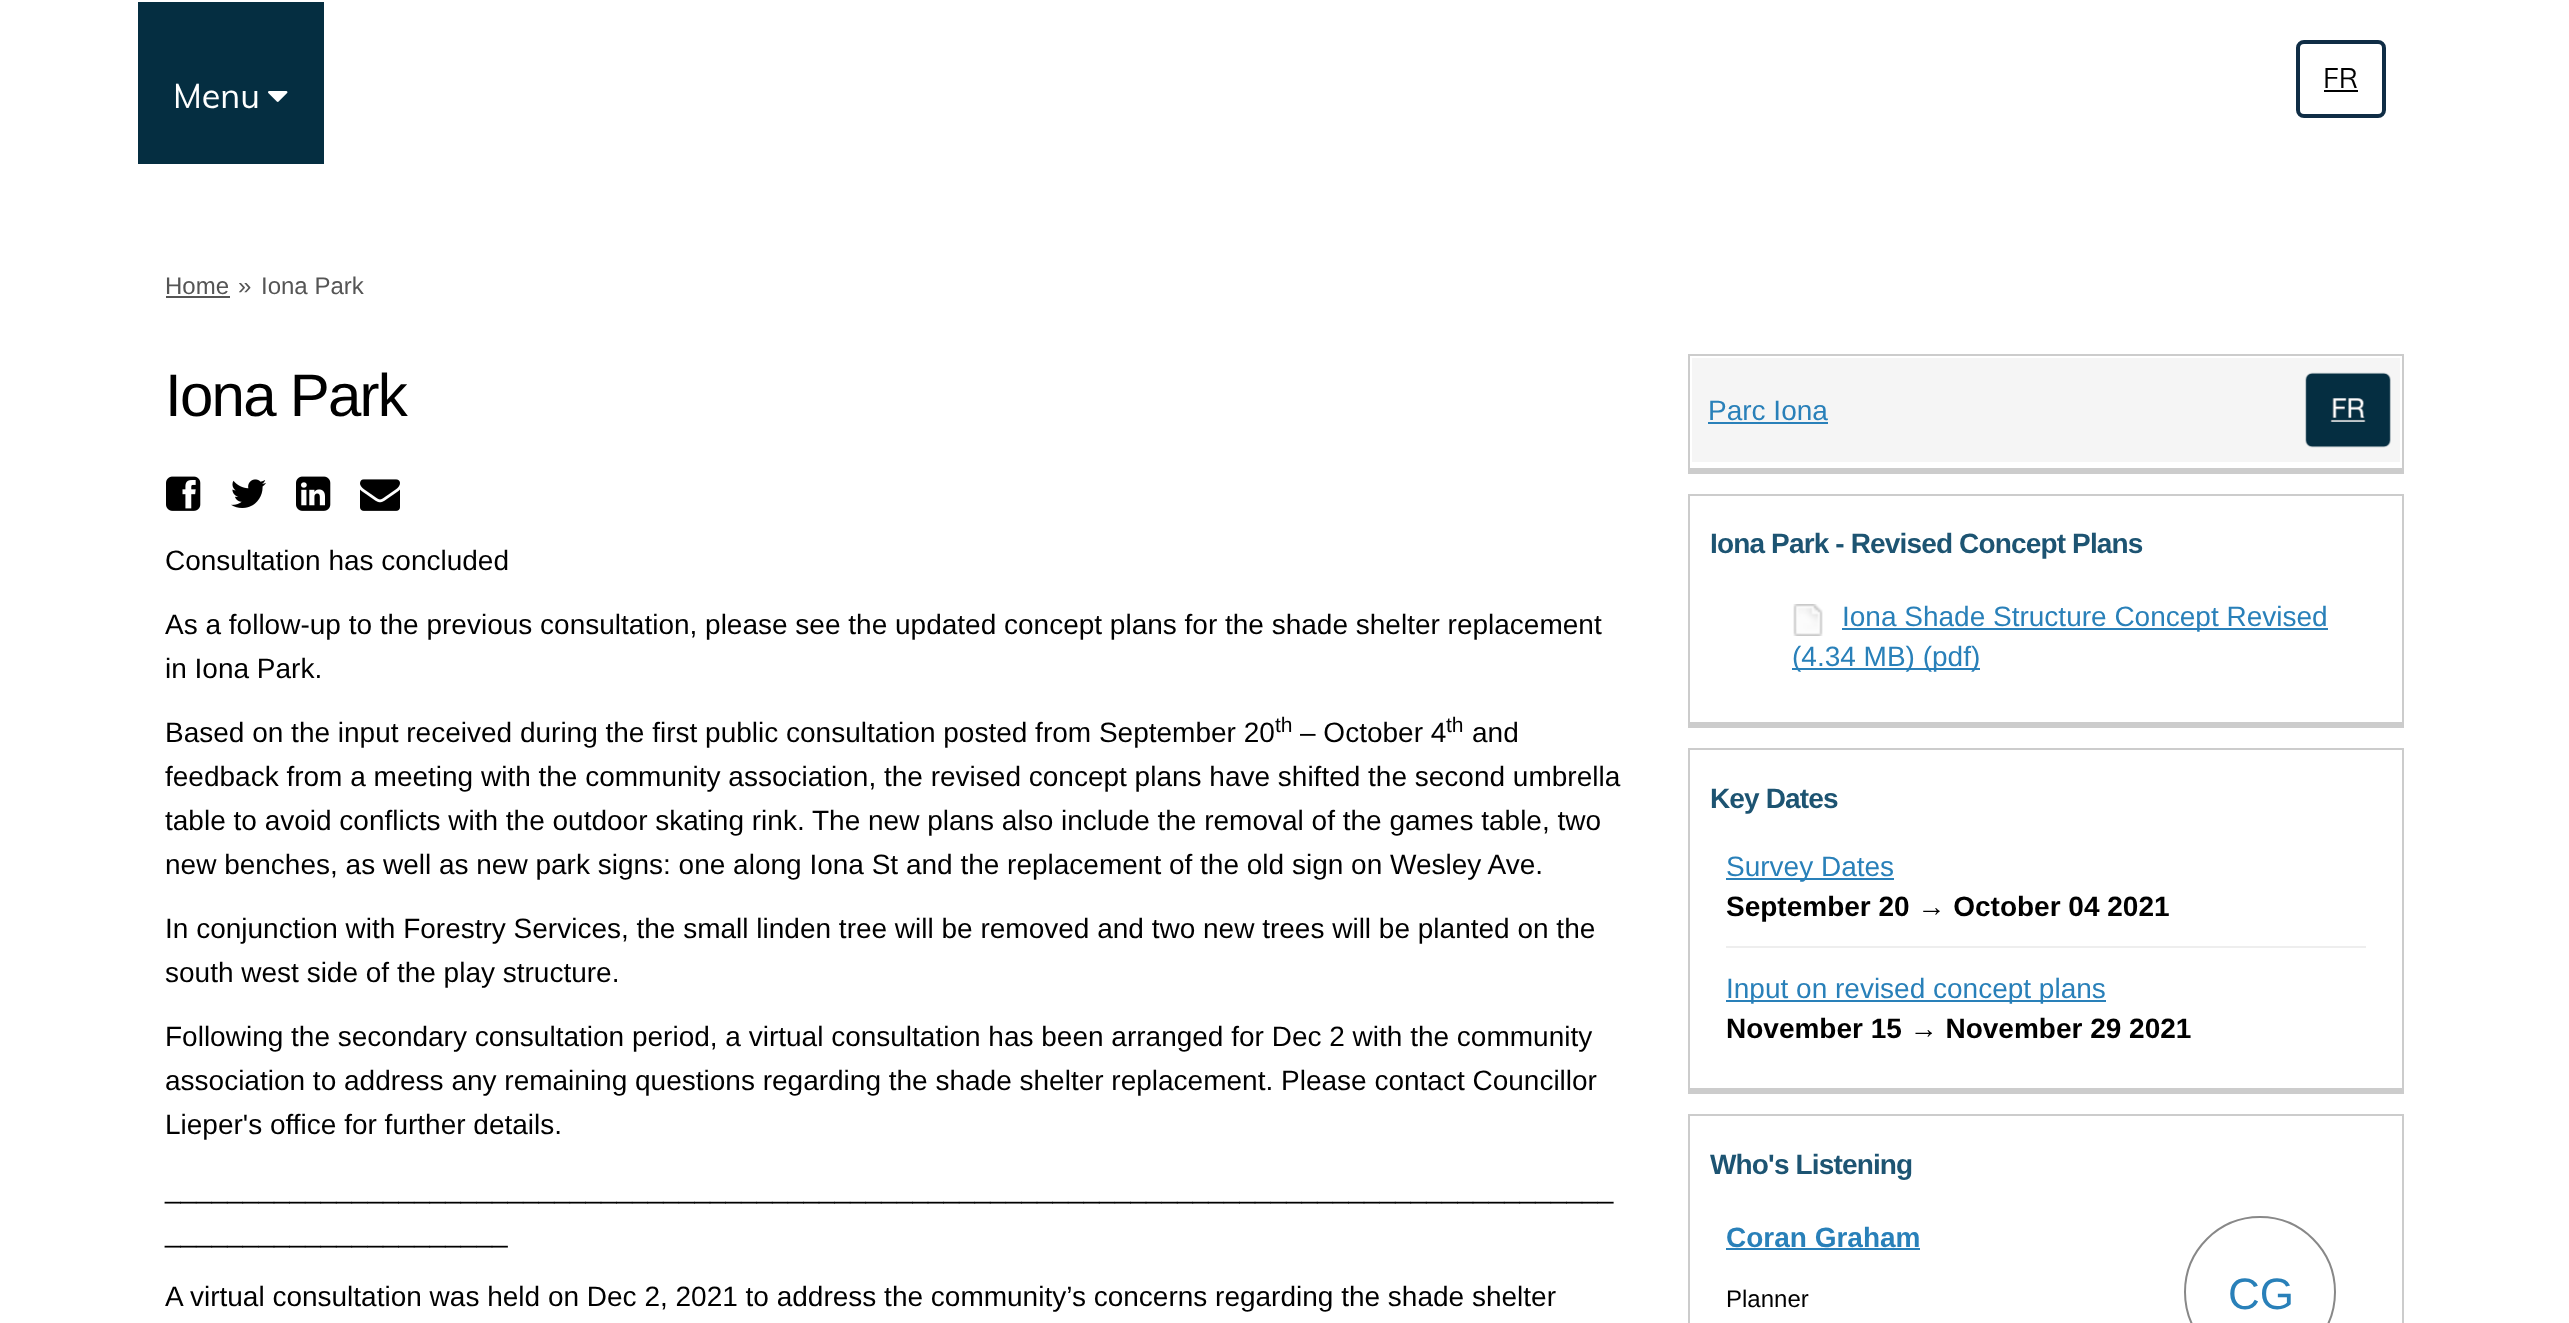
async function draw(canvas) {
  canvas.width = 2569;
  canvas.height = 1323;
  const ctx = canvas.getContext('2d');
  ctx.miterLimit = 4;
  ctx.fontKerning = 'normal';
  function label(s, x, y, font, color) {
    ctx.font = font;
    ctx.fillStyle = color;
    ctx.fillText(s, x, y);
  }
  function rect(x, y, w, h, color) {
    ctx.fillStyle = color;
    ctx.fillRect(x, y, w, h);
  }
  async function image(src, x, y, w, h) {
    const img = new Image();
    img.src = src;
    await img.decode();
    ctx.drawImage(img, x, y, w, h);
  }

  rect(0, 0, 2569, 1323, '#fff');
  ctx.beginPath();
  ctx.roundRect(2298, 42, 86, 74, 6);
  ctx.strokeStyle = '#0f2d45';
  ctx.lineWidth = 4;
  ctx.stroke();
  label('FR', 2323, 88, '28px Muli', '#000');
  rect(2324, 90, 34, 2, '#000');
  rect(138, 2, 186, 162, '#052e41');
  label('Menu', 173, 108, '34px Muli', '#fff');
  await image('assets/img1.png', 268, 91, 20, 11);
  label('Home', 165, 294, '24px Liberation Sans', '#555');
  rect(166, 296, 64, 2, '#555');
  label('»', 238, 294, '24px Liberation Sans', '#555');
  label('Iona Park', 261, 294, '24px Liberation Sans', '#555');
  ctx.letterSpacing = '-1.75px';
  label('Iona Park', 165, 416, '60px Liberation Sans', '#000');
  await image('assets/img2.png', 166, 476, 35, 35);
  await image('assets/img3.png', 231, 479, 35, 29);
  await image('assets/img4.png', 296, 476, 35, 35);
  await image('assets/img5.png', 360, 479, 40, 32);
  ctx.letterSpacing = '0px';
  label('Consultation has concluded', 165, 570, '28px Liberation Sans', '#000');
  label('As a follow-up to the previous consultation, please see the updated concept plans for the shade shelter replacement', 165, 634, '28px Liberation Sans', '#000');
  label('in Iona Park.', 165, 678, '28px Liberation Sans', '#000');
  label('Based on the input received during the first public consultation posted from September 20', 165, 742, '28px Liberation Sans', '#000');
  label('th', 1275, 732, '21px Liberation Sans', '#000');
  label('– October 4', 1300, 742, '28px Liberation Sans', '#000');
  label('th', 1446, 732, '21px Liberation Sans', '#000');
  label('and', 1472, 742, '28px Liberation Sans', '#000');
  label('feedback from a meeting with the community association, the revised concept plans have shifted the second umbrella', 165, 786, '28px Liberation Sans', '#000');
  label('table to avoid conflicts with the outdoor skating rink. The new plans also include the removal of the games table, two', 165, 830, '28px Liberation Sans', '#000');
  label('new benches, as well as new park signs: one along Iona St and the replacement of the old sign on Wesley Ave.', 165, 874, '28px Liberation Sans', '#000');
  label('In conjunction with Forestry Services, the small linden tree will be removed and two new trees will be planted on the', 165, 938, '28px Liberation Sans', '#000');
  label('south west side of the play structure.', 165, 982, '28px Liberation Sans', '#000');
  label('Following the secondary consultation period, a virtual consultation has been arranged for Dec 2 with the community', 165, 1046, '28px Liberation Sans', '#000');
  label('association to address any remaining questions regarding the shade shelter replacement. Please contact Councillor', 165, 1090, '28px Liberation Sans', '#000');
  label('Lieper\'s office for further details.', 165, 1134, '28px Liberation Sans', '#000');
  label('_____________________________________________________________________________________________', 165, 1198, '28px Liberation Sans', '#000');
  label('______________________', 165, 1242, '28px Liberation Sans', '#000');
  label('A virtual consultation was held on Dec 2, 2021 to address the community’s concerns regarding the shade shelter', 165, 1306, '28px Liberation Sans', '#000');
  rect(1688, 354, 716, 2, '#ccc');
  rect(2402, 354, 2, 120, '#ccc');
  rect(1688, 468, 716, 6, '#ccc');
  rect(1688, 354, 2, 120, '#ccc');
  rect(1692, 358, 708, 104, '#f5f5f5');
  label('Parc Iona', 1708, 420, '28px Liberation Sans', '#2980b9');
  rect(1708, 422, 120, 2, '#2980b9');
  await image('assets/img6.png', 2305, 372, 86, 76);
  rect(1688, 494, 716, 2, '#ccc');
  rect(2402, 494, 2, 234, '#ccc');
  rect(1688, 722, 716, 6, '#ccc');
  rect(1688, 494, 2, 234, '#ccc');
  ctx.letterSpacing = '-0.85px';
  label('Iona Park - Revised Concept Plans', 1710, 553, 'bold 28px Liberation Sans', '#1d5472');
  await image('assets/img7.png', 1793, 604, 30, 32);
  rect(1842, 628, 486, 2, '#2980b9');
  ctx.letterSpacing = '0px';
  label('Iona Shade Structure Concept Revised', 1842, 626, '28px Liberation Sans', '#2980b9');
  rect(1792, 668, 188, 2, '#2980b9');
  label('(4.34 MB) (pdf)', 1792, 666, '28px Liberation Sans', '#2980b9');
  rect(1688, 748, 716, 2, '#ccc');
  rect(2402, 748, 2, 346, '#ccc');
  rect(1688, 1088, 716, 6, '#ccc');
  rect(1688, 748, 2, 346, '#ccc');
  ctx.letterSpacing = '-0.85px';
  label('Key Dates', 1710, 808, 'bold 28px Liberation Sans', '#1d5472');
  rect(1726, 946, 640, 2, '#eee');
  rect(1726, 878, 168, 2, '#2980b9');
  ctx.letterSpacing = '0px';
  label('Survey Dates', 1726, 876, '28px Liberation Sans', '#2980b9');
  label('September 20 → October 04 2021', 1726, 916, 'bold 28px Liberation Sans', '#000');
  rect(1726, 1000, 380, 2, '#2980b9');
  label('Input on revised concept plans', 1726, 998, '28px Liberation Sans', '#2980b9');
  label('November 15 → November 29 2021', 1726, 1038, 'bold 28px Liberation Sans', '#000');
  rect(1688, 1114, 716, 2, '#ccc');
  rect(2402, 1114, 2, 209, '#ccc');
  rect(1688, 1114, 2, 209, '#ccc');
  ctx.letterSpacing = '-0.85px';
  label('Who\'s Listening', 1710, 1174, 'bold 28px Liberation Sans', '#1d5472');
  ctx.letterSpacing = '0px';
  label('Coran Graham', 1726, 1247, 'bold 28px Liberation Sans', '#2980b9');
  rect(1726, 1248, 194, 2, '#2980b9');
  label('Planner', 1726, 1307, '24px Liberation Sans', '#000');
  ctx.beginPath();
  ctx.arc(2260, 1292, 75, 0, 2 * Math.PI);
  ctx.strokeStyle = '#888';
  ctx.lineWidth = 2;
  ctx.stroke();
  label('CG', 2228, 1309, '44px Liberation Sans', '#2980b9');
}

draw(document.querySelector('canvas'));
